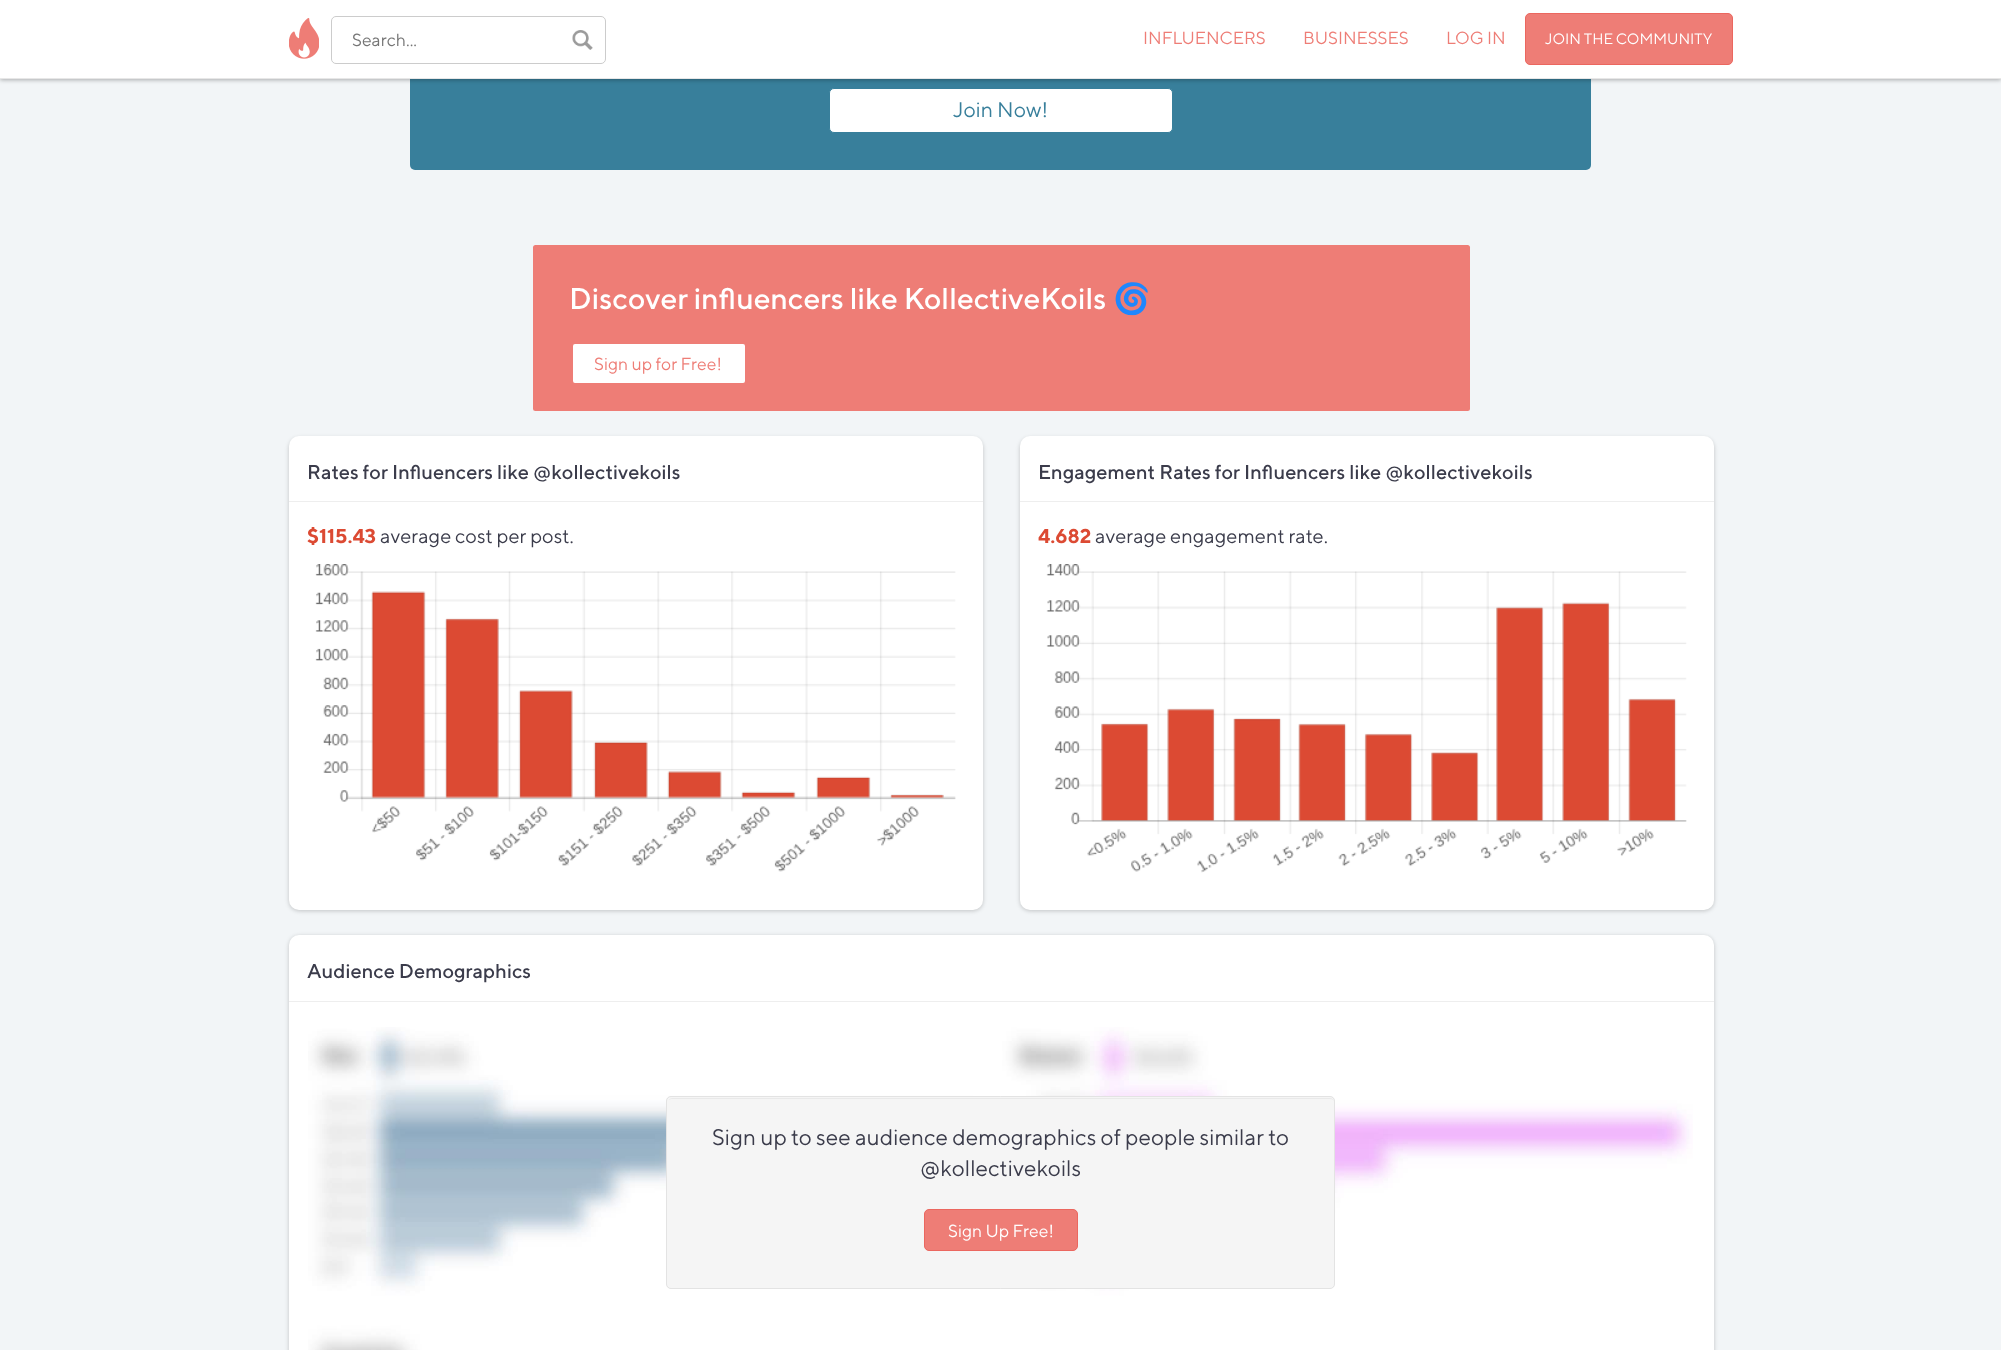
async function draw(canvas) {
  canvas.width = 2001;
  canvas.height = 1350;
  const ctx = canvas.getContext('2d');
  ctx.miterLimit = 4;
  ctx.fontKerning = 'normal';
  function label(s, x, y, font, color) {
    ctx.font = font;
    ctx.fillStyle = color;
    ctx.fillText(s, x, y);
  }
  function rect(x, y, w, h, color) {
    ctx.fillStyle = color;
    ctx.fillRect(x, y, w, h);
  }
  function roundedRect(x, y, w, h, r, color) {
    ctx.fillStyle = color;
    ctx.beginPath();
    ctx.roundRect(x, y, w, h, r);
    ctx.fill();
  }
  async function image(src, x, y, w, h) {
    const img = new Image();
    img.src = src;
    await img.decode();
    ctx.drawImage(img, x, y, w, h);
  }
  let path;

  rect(0, 0, 2001, 1350, '#f2f5f7');
  roundedRect(410, -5, 1181, 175, 5, '#387f9b');
  ctx.fillStyle = '#0000004d';
  ctx.filter = 'blur(2px)';
  ctx.beginPath();
  ctx.rect(0, 1, 2001, 79);
  ctx.fill();
  ctx.filter = 'none';
  rect(0, 0, 2001, 78, '#fff');
  rect(0, 78, 2001, 1, '#e7e7e7');
  await image('assets/img1.png', 289, 18, 30, 41);
  await image('assets/img2.png', 572, 30, 21, 20);
  ctx.beginPath();
  ctx.roundRect(331.5, 16.5, 274, 47, 4.5);
  ctx.strokeStyle = '#ccc';
  ctx.stroke();
  label('Search...', 352, 46, '17.5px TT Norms', '#757575');
  label('INFLUENCERS', 1143, 44, '17.5px TT Norms', '#ee7d76');
  label('BUSINESSES', 1303, 44, '17.5px TT Norms', '#ee7d76');
  label('LOG IN', 1446, 44, '17.5px TT Norms', '#ee7d76');
  ctx.beginPath();
  ctx.roundRect(1525.5, 13.5, 207, 51, 4.5);
  ctx.fill();
  ctx.strokeStyle = '#eb675f';
  ctx.stroke();
  label('JOIN THE COMMUNITY', 1545, 44, '15px TT Norms', '#fff');
  ctx.beginPath();
  ctx.roundRect(829.5, 88.5, 343, 44, 4.5);
  ctx.fill();
  ctx.strokeStyle = '#387f9b';
  ctx.stroke();
  label('Join Now!', 953, 117, '21.25px TT Norms', '#387f9b');
  roundedRect(533, 245, 937, 166, 2.5, '#ee7d76');
  label('Discover influencers like KollectiveKoils', 569, 309, '500 30px TT Norms', '#fff');
  label('🌀', 1113, 309, '30px Noto Color Emoji', '#fff');
  ctx.beginPath();
  ctx.roundRect(571.5, 342.5, 175, 42, 3.5);
  ctx.fill();
  ctx.strokeStyle = '#ee7d76';
  ctx.lineWidth = 3;
  ctx.stroke();
  label('Sign up for Free!', 594, 370, '17.5px TT Norms', '#ee7d76');
  ctx.fillStyle = '#00000033';
  ctx.filter = 'blur(2px)';
  ctx.beginPath();
  ctx.roundRect(289, 438, 694, 473, 10);
  ctx.fill();
  ctx.filter = 'none';
  roundedRect(289, 436, 694, 474, 10, '#fff');
  rect(289, 501, 694, 1, '#eee');
  label('Rates for Influencers like @kollectivekoils', 307, 479, '500 20px TT Norms', '#3b3c4b');
  label('$115.43', 307, 543, 'bold 20px TT Norms', '#dc4a33');
  label('average cost per post.', 380, 543, '20px TT Norms', '#3b3c4b');
  await image('assets/img3.png', 315, 564, 641, 308);
  ctx.fillStyle = '#00000033';
  ctx.filter = 'blur(2px)';
  ctx.beginPath();
  ctx.roundRect(1020, 438, 694, 473, 10);
  ctx.fill();
  ctx.filter = 'none';
  roundedRect(1020, 436, 694, 474, 10, '#fff');
  rect(1020, 501, 694, 1, '#eee');
  label('Engagement Rates for Influencers like @kollectivekoils', 1038, 479, '500 20px TT Norms', '#3b3c4b');
  label('4.682', 1038, 543, 'bold 20px TT Norms', '#dc4a33');
  label('average engagement rate.', 1095, 543, '20px TT Norms', '#3b3c4b');
  await image('assets/img4.png', 1046, 564, 641, 309);
  ctx.fillStyle = '#00000033';
  ctx.filter = 'blur(2px)';
  ctx.beginPath();
  ctx.roundRect(289, 936, 1425, 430, 10);
  ctx.fill();
  ctx.filter = 'none';
  roundedRect(289, 935, 1425, 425, 10, '#fff');
  rect(289, 1001, 1425, 1, '#eee');
  label('Audience Demographics', 307, 978, '500 20px TT Norms', '#3b3c4b');
  await image('assets/img5.png', 308, 1027, 1385, 323);
  roundedRect(666, 1096, 669, 193, 5, '#f5f5f5');
  ctx.fillStyle = '#e9e9e9';
  path = new Path2D('M671 1099H1330C1332 1099 1334 1100 1334 1102C1334 1100 1332 1098 1330 1098H672C671 1098 669 1099 669 1100Z');
  ctx.fill(path);
  ctx.beginPath();
  ctx.roundRect(666.5, 1096.5, 668, 192, 4.5);
  ctx.strokeStyle = '#e3e3e3';
  ctx.lineWidth = 1;
  ctx.stroke();
  label('Sign up to see audience demographics of people similar to', 712, 1145, '22.5px TT Norms', '#3b3c4b');
  label('@kollectivekoils', 920, 1176, '22.5px TT Norms', '#3b3c4b');
  ctx.fillStyle = '#ee7d76';
  ctx.beginPath();
  ctx.roundRect(924.5, 1209.5, 153, 41, 4.5);
  ctx.fill();
  ctx.strokeStyle = '#eb675f';
  ctx.stroke();
  label('Sign Up Free!', 948, 1237, '17.5px TT Norms', '#fff');
}

draw(document.querySelector('canvas'));
